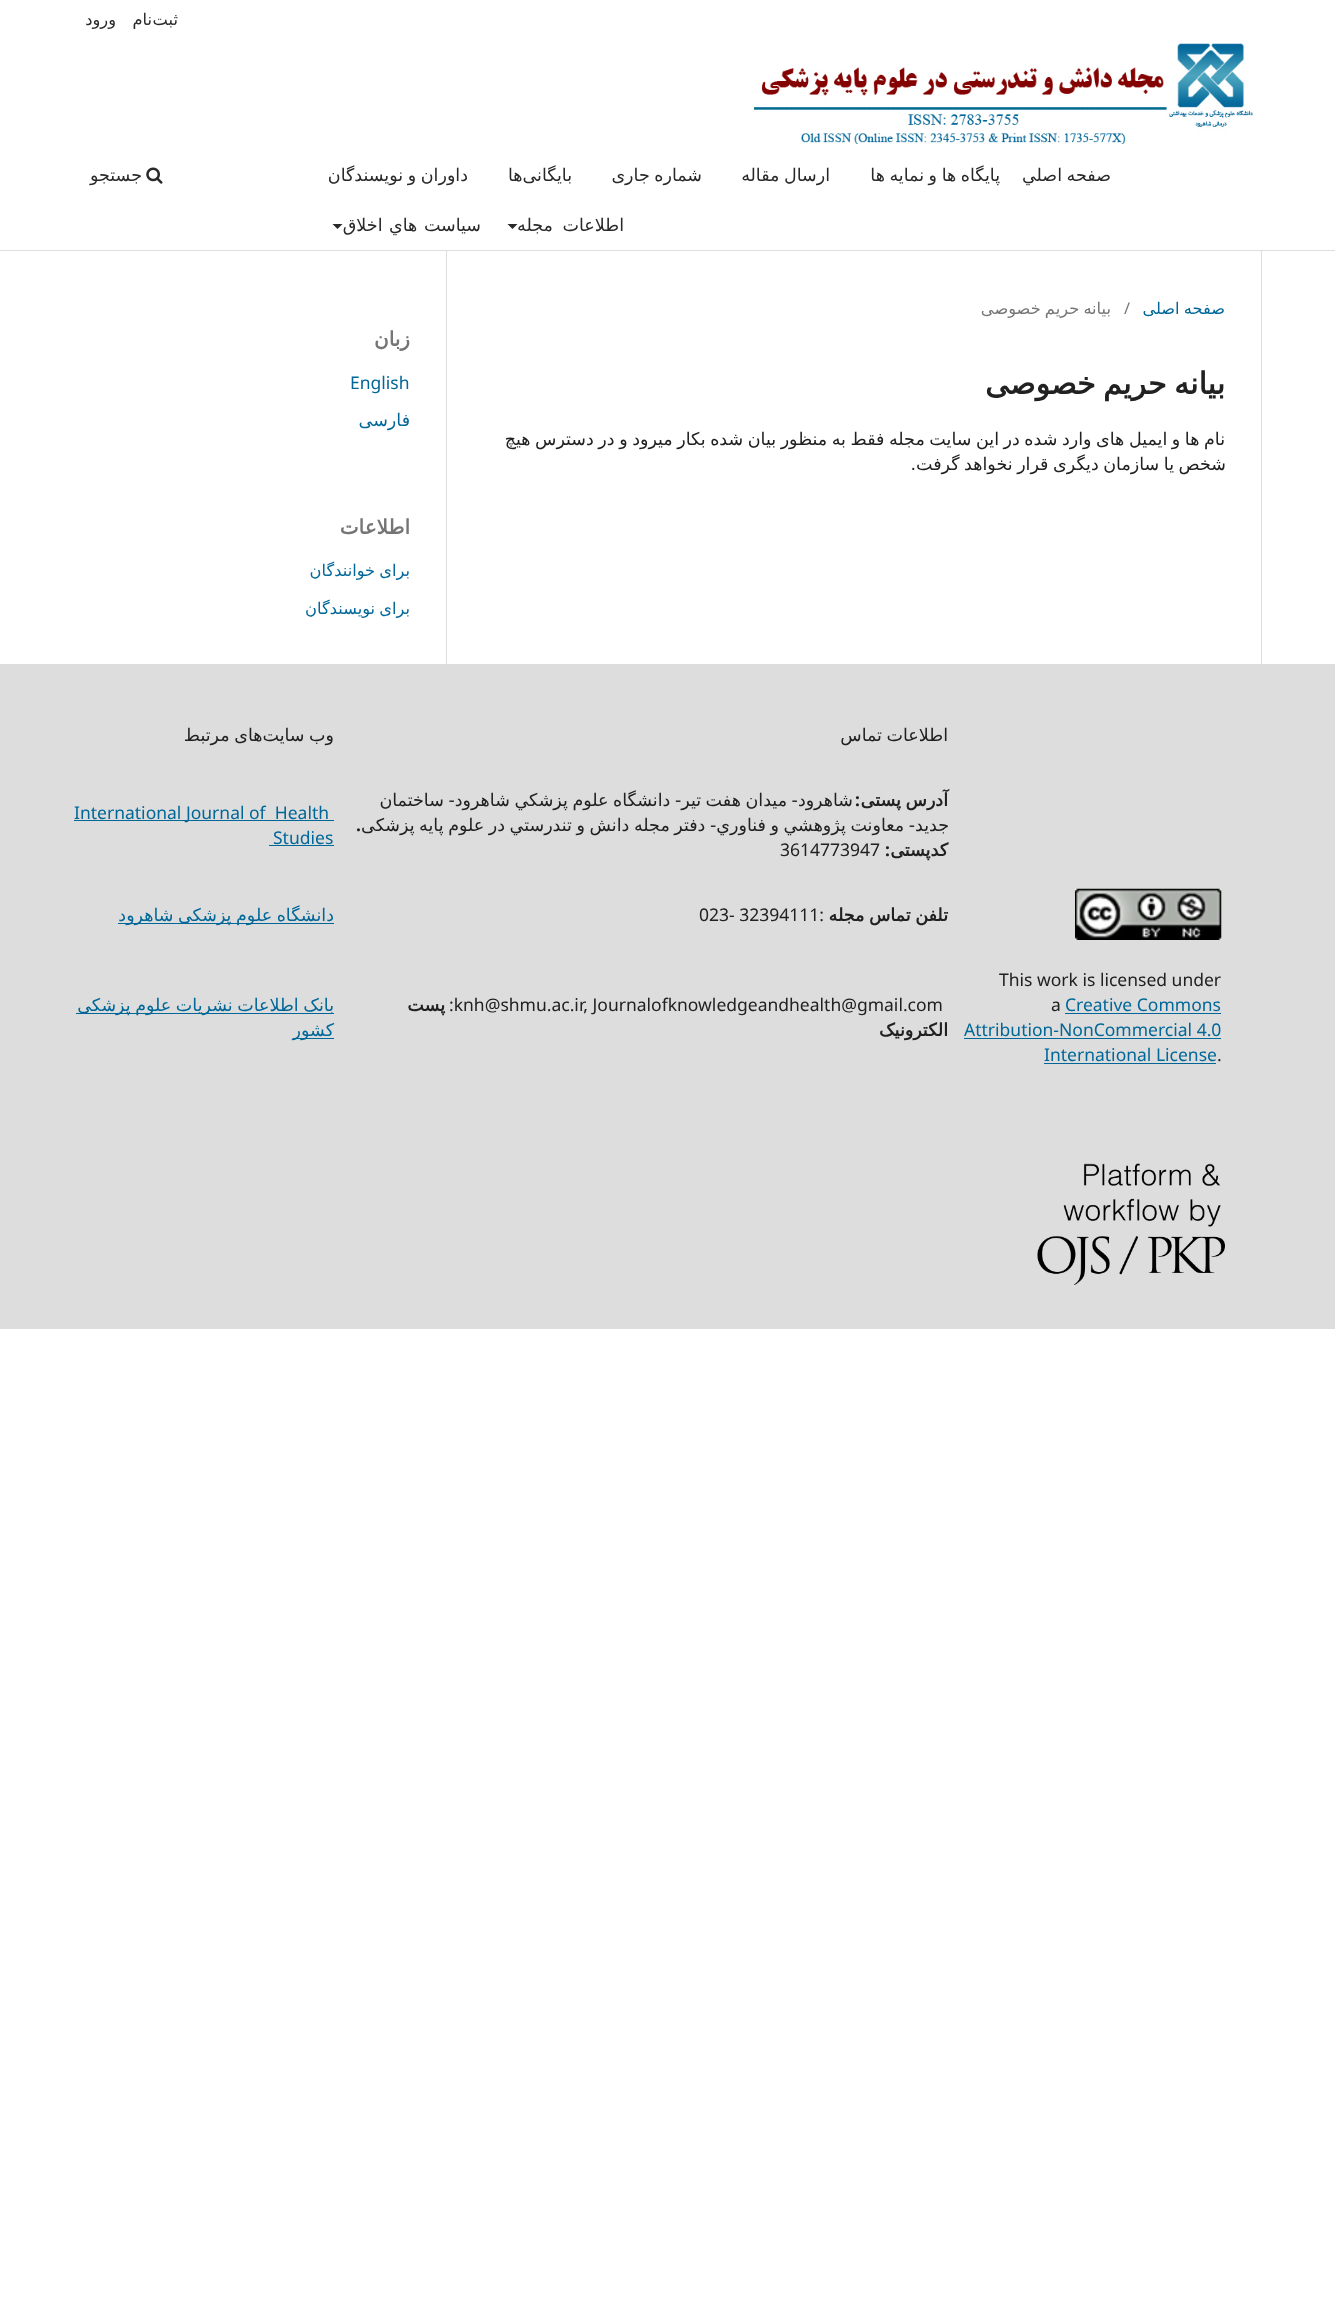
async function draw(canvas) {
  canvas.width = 1335;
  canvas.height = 2310;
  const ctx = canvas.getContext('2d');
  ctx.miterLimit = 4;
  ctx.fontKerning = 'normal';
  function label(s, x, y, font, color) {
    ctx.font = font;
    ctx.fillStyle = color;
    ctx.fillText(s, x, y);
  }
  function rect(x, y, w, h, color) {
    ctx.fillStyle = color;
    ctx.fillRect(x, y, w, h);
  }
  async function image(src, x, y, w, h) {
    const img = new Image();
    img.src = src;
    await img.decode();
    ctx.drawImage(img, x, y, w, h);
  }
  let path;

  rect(0, 0, 1335, 2310, '#fff');
  rect(0, 250, 1335, 1, '#ddd');
  ctx.direction = 'rtl';
  label('ثبت', 178, 25, '16.25px DejaVu Sans', '#292929');
  label('نام', 152, 25, '16.25px DejaVu Sans', '#292929');
  label('ورود', 116, 25, '16.25px DejaVu Sans', '#292929');
  ctx.wordSpacing = '-1px';
  label('صفحه اصلي', 1111, 181, '17.5px DejaVu Sans', '#292929');
  label('پایگاه ها و نمایه ها', 1000, 181, '17.5px DejaVu Sans', '#292929');
  label('ارسال مقاله', 830, 181, '17.5px DejaVu Sans', '#292929');
  label('شماره جاری', 702, 181, '17.5px DejaVu Sans', '#292929');
  ctx.wordSpacing = '0px';
  label('بایگانی‌ها', 572, 181, '17.5px DejaVu Sans', '#292929');
  ctx.wordSpacing = '-1px';
  label('داوران و نويسندگان', 468, 181, '17.5px DejaVu Sans', '#292929');
  ctx.wordSpacing = '4px';
  label('اطلاعات مجله', 624, 231, '17.5px DejaVu Sans', '#292929');
  path = new Path2D('M507.5 224H517.5L512.5 229Z');
  ctx.fill(path);
  ctx.wordSpacing = '1px';
  label('سياست هاي اخلاق', 481, 231, '17.5px DejaVu Sans', '#292929');
  path = new Path2D('M332.5 224H342.5L337.5 229Z');
  ctx.fill(path);
  await image('assets/img1.png', 146, 167, 17, 17);
  ctx.wordSpacing = '0px';
  label('جستجو', 142, 181, '17.5px DejaVu Sans', '#292929');
  await image('assets/img2.png', 754, 43, 499, 101);
  rect(1261, 251, 1, 413, '#ddd');
  ctx.wordSpacing = '-1px';
  label('صفحه اصلی', 1225, 314, '16.25px DejaVu Sans', '#006798');
  ctx.wordSpacing = '0px';
  ctx.direction = 'ltr';
  label('/', 1124, 314, '16.25px Noto Sans', '#757575');
  ctx.wordSpacing = '-1px';
  ctx.direction = 'rtl';
  label('بیانه حریم خصوصی', 1111, 314, '16.25px DejaVu Sans', '#757575');
  ctx.wordSpacing = '-2px';
  label('بیانه حریم خصوصی', 1225, 394, 'bold 30px DejaVu Sans', '#212121');
  ctx.wordSpacing = '-1px';
  label('نام ها و ایمیل های وارد شده در این سایت مجله فقط به منظور بیان شده بکار میرود و در دسترس هیچ', 1225, 445, '17.5px DejaVu Sans', '#212121');
  label('شخص یا سازمان دیگری قرار نخواهد گرفت.', 1226, 470, '17.5px DejaVu Sans', '#212121');
  rect(446, 251, 1, 413, '#ddd');
  ctx.wordSpacing = '0px';
  label('زبان', 410, 346, 'bold 20px DejaVu Sans', '#757575');
  ctx.direction = 'ltr';
  label('English', 350, 389, '17.5px Noto Sans', '#006798');
  ctx.direction = 'rtl';
  label('فارسی', 410, 426, '17.5px DejaVu Sans', '#006798');
  label('اطلاعات', 410, 534, 'bold 20px DejaVu Sans', '#757575');
  ctx.wordSpacing = '-1px';
  label('برای خوانندگان', 410, 576, '16.25px DejaVu Sans', '#006798');
  label('برای نویسندگان', 410, 614, '16.25px DejaVu Sans', '#006798');
  rect(0, 664, 1335, 665, '#ddd');
  label('اطلاعات تماس', 948, 741, '17.5px DejaVu Sans', '#212121');
  label('وب سایت‌های مرتبط', 334, 741, '17.5px DejaVu Sans', '#212121');
  label('آدرس پستی', 948, 806, 'bold 17.5px DejaVu Sans', '#212121');
  ctx.wordSpacing = '0px';
  label(':', 860, 806, 'bold 17.5px Noto Sans', '#212121');
  ctx.wordSpacing = '-1px';
  label('شاهرود- ميدان هفت تير- دانشگاه علوم پزشكي شاهرود- ساختمان', 853, 806, '17.5px DejaVu Sans', '#212121');
  label('جديد- معاونت پژوهشي و فناوري- دفتر مجله دانش و تندرستي در علوم پایه پزشکی', 949, 831, '17.5px DejaVu Sans', '#212121');
  ctx.wordSpacing = '0px';
  ctx.direction = 'ltr';
  label('.', 356, 831, 'bold 17.5px Noto Sans', '#212121');
  ctx.direction = 'rtl';
  label('کدپستی', 948, 856, 'bold 17.5px DejaVu Sans', '#212121');
  label(':', 890, 856, 'bold 17.5px Noto Sans', '#212121');
  ctx.direction = 'ltr';
  label('3614773947', 780, 856, '17.5px Noto Sans', '#212121');
  rect(74, 820, 260, 1, '#006798');
  label('International Journal of  Health', 74, 819, '17.5px Noto Sans', '#006798');
  label('Studies', 273, 844, '17.5px Noto Sans', '#006798');
  rect(269, 845, 65, 1, '#006798');
  await image('assets/img3.png', 1075, 888, 147, 52);
  ctx.wordSpacing = '-1px';
  ctx.direction = 'rtl';
  label('تلفن تماس مجله', 948, 921, 'bold 17.5px DejaVu Sans', '#212121');
  ctx.wordSpacing = '0px';
  ctx.direction = 'ltr';
  label('023- 32394111:', 699, 921, '17.5px Noto Sans', '#212121');
  rect(118, 923, 216, 1, '#006798');
  ctx.wordSpacing = '-1px';
  ctx.direction = 'rtl';
  label('دانشگاه علوم پزشکی شاهرود', 334, 921, '17.5px DejaVu Sans', '#006798');
  ctx.wordSpacing = '0px';
  ctx.direction = 'ltr';
  label('This work is licensed under', 999, 986, '17.5px Noto Sans', '#212121');
  label('Creative Commons', 1065, 1011, '17.5px Noto Sans', '#006798');
  rect(1065, 1013, 156, 1, '#006798');
  label('a', 1051, 1011, '17.5px Noto Sans', '#212121');
  label('Attribution-NonCommercial 4.0', 964, 1036, '17.5px Noto Sans', '#006798');
  rect(964, 1038, 257, 1, '#006798');
  label('.', 1217, 1061, '17.5px Noto Sans', '#212121');
  label('International License', 1044, 1061, '17.5px Noto Sans', '#006798');
  rect(1044, 1063, 172, 1, '#006798');
  label(':knh@shmu.ac.ir, Journalofknowledgeandhealth@gmail.com', 449, 1011, '17.5px Noto Sans', '#212121');
  ctx.direction = 'rtl';
  label('پست', 445, 1011, 'bold 17.5px DejaVu Sans', '#212121');
  label('الکترونیک', 948, 1036, 'bold 17.5px DejaVu Sans', '#212121');
  rect(76, 1013, 258, 1, '#006798');
  ctx.wordSpacing = '-1px';
  label('بانک اطلاعات نشریات علوم پزشکی', 334, 1011, '17.5px DejaVu Sans', '#006798');
  rect(293, 1038, 41, 1, '#006798');
  ctx.wordSpacing = '0px';
  label('کشور', 334, 1036, '17.5px DejaVu Sans', '#006798');
  await image('assets/img4.png', 1037, 1163, 188, 122);
}

draw(document.querySelector('canvas'));
